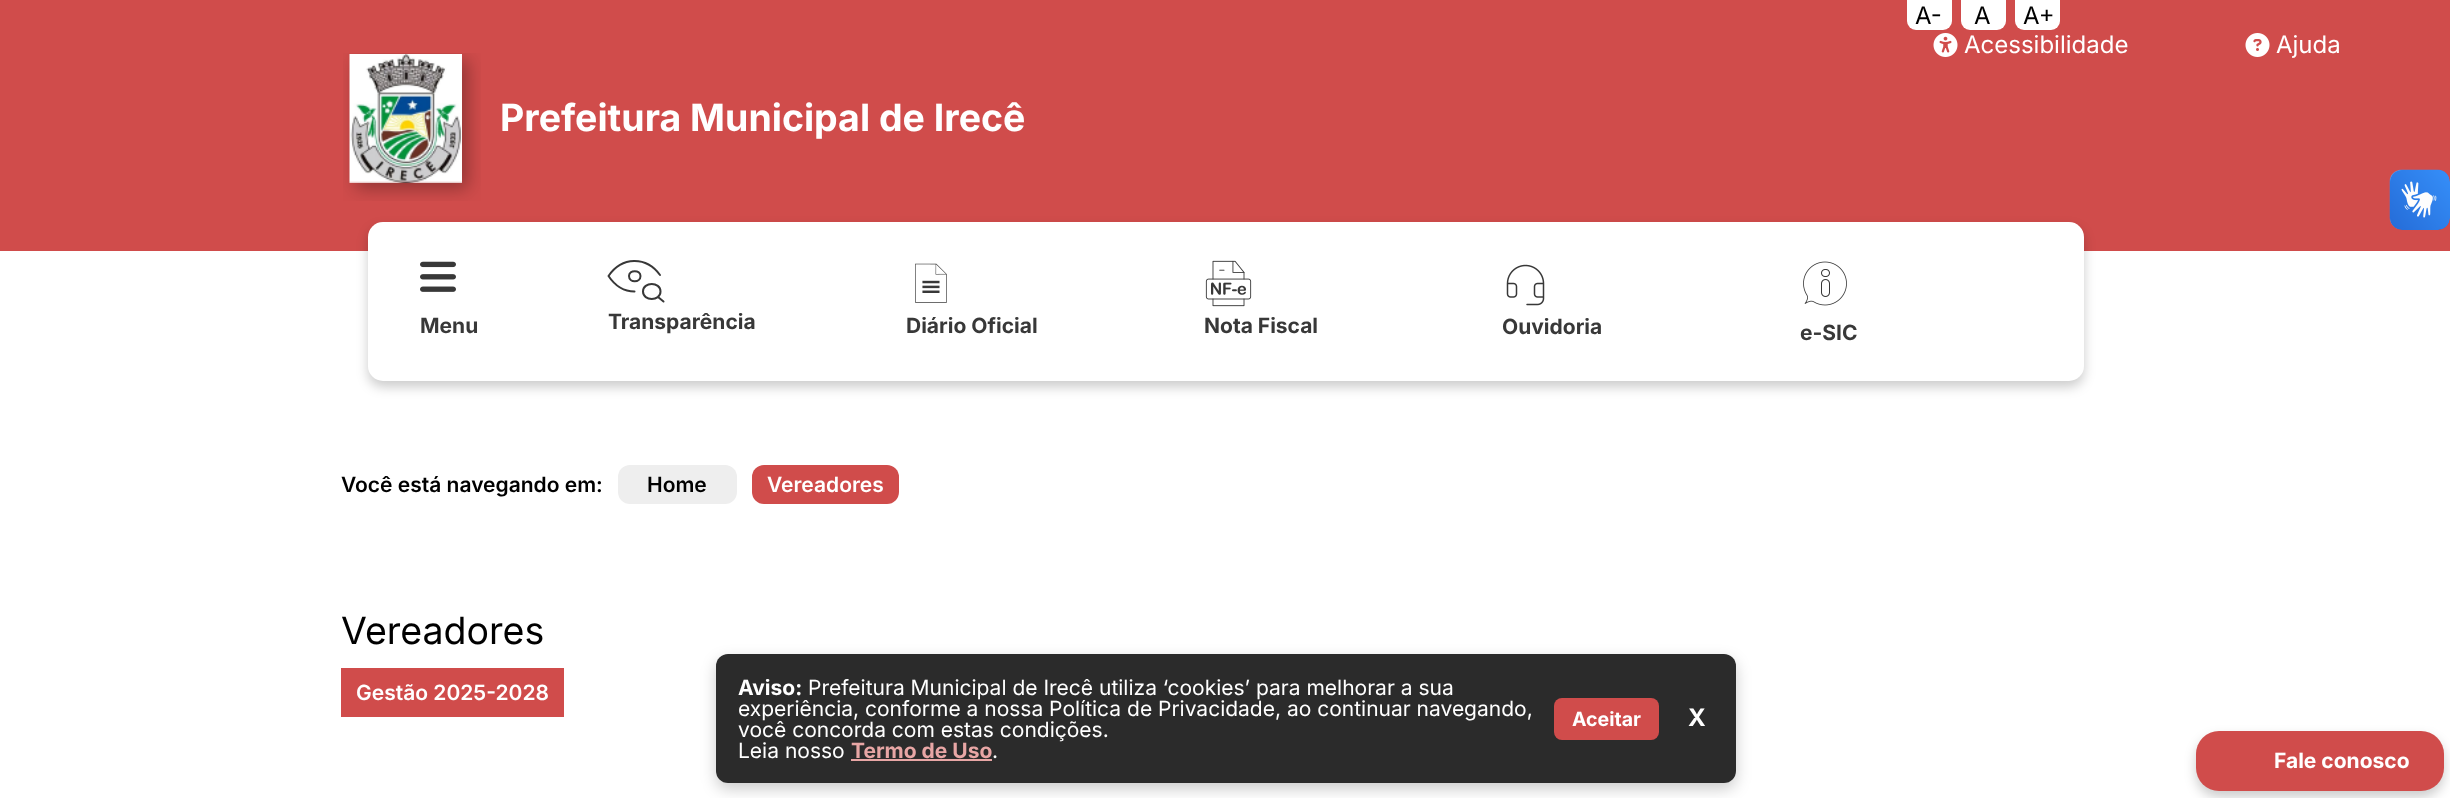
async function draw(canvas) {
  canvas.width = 2450;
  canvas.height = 798;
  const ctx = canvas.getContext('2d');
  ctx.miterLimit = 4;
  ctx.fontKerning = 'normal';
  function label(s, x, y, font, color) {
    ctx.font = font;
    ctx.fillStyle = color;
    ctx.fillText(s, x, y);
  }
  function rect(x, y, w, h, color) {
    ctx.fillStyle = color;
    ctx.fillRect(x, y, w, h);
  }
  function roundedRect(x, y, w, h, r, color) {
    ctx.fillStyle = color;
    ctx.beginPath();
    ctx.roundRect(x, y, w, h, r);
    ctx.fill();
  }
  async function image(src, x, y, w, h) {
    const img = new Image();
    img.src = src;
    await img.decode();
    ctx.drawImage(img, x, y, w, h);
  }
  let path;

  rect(0, 0, 2450, 798, '#fff');
  rect(0, 0, 2450, 251, '#d04c4b');
  ctx.fillStyle = '#fff';
  ctx.beginPath();
  ctx.roundRect(1907, 0, 45, 30, [0, 0, 9, 9]);
  ctx.fill();
  label('A-', 1915, 24, '24px Inter', '#000');
  ctx.fillStyle = '#fff';
  ctx.beginPath();
  ctx.roundRect(1961, 0, 45, 30, [0, 0, 9, 9]);
  ctx.fill();
  label('A', 1974, 24, '24px Inter', '#000');
  ctx.fillStyle = '#fff';
  ctx.beginPath();
  ctx.roundRect(2015, 0, 45, 30, [0, 0, 9, 9]);
  ctx.fill();
  label('A+', 2023, 24, '24px Inter', '#000');
  await image('assets/img1.png', 1933, 33, 25, 24);
  label('Acessibilidade', 1964, 53, '24px Inter', '#fff');
  await image('assets/img2.png', 2245, 33, 25, 24);
  label('Ajuda', 2276, 53, '24px Inter', '#fff');
  await image('assets/img3.png', 343, 53, 138, 148);
  label('Prefeitura Municipal de Irecê', 500, 131, 'bold 37.5px Inter', '#fff');
  ctx.fillStyle = '#00000033';
  ctx.filter = 'blur(6px)';
  ctx.beginPath();
  ctx.roundRect(368, 228, 1716, 159, 15);
  ctx.fill();
  ctx.filter = 'none';
  roundedRect(368, 222, 1716, 159, 15, '#fff');
  await image('assets/img4.png', 420, 261, 36, 31);
  label('Menu', 420, 333, 'bold 21px Inter', '#383838');
  path = new Path2D('M629 276C629 283 640.5 283 640.5 276C640.5 269.5 629 269.5 629 276ZM634.5 291.5C623.5 291.5 614.5 285 608.5 276C622 256.5 646 256 660 275M658 297L663.5 301.5M643 291.5C643 301.5 660.5 301.5 660.5 291.5C660.5 281.5 643 281.5 643 291.5Z');
  ctx.strokeStyle = '#383838';
  ctx.lineWidth = 2;
  ctx.lineCap = 'round';
  ctx.lineJoin = 'round';
  ctx.stroke(path);
  label('Transparência', 608, 329, 'bold 21px Inter', '#383838');
  await image('assets/img5.png', 915, 263, 32, 40);
  label('Diário Oficial', 906, 333, 'bold 21px Inter', '#383838');
  await image('assets/img6.png', 1205, 260, 47, 47);
  label('Nota Fiscal', 1204, 333, 'bold 21px Inter', '#383838');
  await image('assets/img7.png', 1506, 264, 39, 42);
  label('Ouvidoria', 1502, 334, 'bold 21px Inter', '#383838');
  await image('assets/img8.png', 1803, 261, 44, 45);
  label('e-SIC', 1800, 340, 'bold 21px Inter', '#383838');
  ctx.fillStyle = '#00000033';
  ctx.filter = 'blur(6px)';
  ctx.beginPath();
  ctx.roundRect(2196, 737, 248, 60, 23);
  ctx.fill();
  ctx.filter = 'none';
  roundedRect(2196, 731, 248, 60, 23, '#d04c4b');
  label('Fale conosco', 2274, 768, 'bold 21px Inter', '#fff');
  await image('assets/img9.png', 2389, 169, 61, 61);
  await image('assets/img10.png', 2390, 170, 60, 60);
  label('Você está navegando em:', 341, 492, '600 21px Inter', '#000');
  roundedRect(618, 465, 119, 39, 12, '#eee');
  label('Home', 647, 492, '600 21px Inter', '#000');
  roundedRect(752, 465, 147, 39, 12, '#d04c4b');
  label('Vereadores', 767, 492, '600 21px Inter', '#fff');
  label('Vereadores', 341, 644, '37.5px Inter', '#000');
  rect(341, 668, 223, 49, '#d04c4b');
  label('Gestão 2025-2028', 356, 700, '600 21px Inter', '#fff');
  ctx.save();
  path = new Path2D('M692 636H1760V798H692ZM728 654H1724C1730.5 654 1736 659.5 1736 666V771C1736 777.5 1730.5 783 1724 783H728C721.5 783 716 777.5 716 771V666C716 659.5 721.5 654 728 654Z');
  ctx.clip(path, 'evenodd');
  ctx.fillStyle = '#00000033';
  ctx.filter = 'blur(7.5px)';
  ctx.beginPath();
  ctx.roundRect(716, 660, 1020, 129, 12);
  ctx.fill();
  ctx.filter = 'none';
  ctx.restore();
  roundedRect(716, 654, 1020, 129, 12, '#000000d4');
  label('Aviso:', 738, 695, 'bold 21px Inter', '#fff');
  label('Prefeitura Municipal de Irecê utiliza ‘cookies’ para melhorar a sua', 808, 695, '21px Inter', '#fff');
  label('experiência, conforme a nossa Política de Privacidade, ao continuar navegando,', 738, 716, '21px Inter', '#fff');
  label('você concorda com estas condições.', 738, 737, '21px Inter', '#fff');
  label('Leia nosso', 738, 758, '21px Inter', '#fff');
  label('Termo de Uso', 851, 758, 'bold 21px Inter', '#e8a6a5');
  rect(851, 759, 141, 2, '#e8a6a5');
  label('.', 992, 758, '21px Inter', '#fff');
  roundedRect(1554, 698, 105, 42, 8, '#d04c4b');
  label('Aceitar', 1572, 726, 'bold 19.5px Inter', '#fff');
  label('X', 1688, 726, 'bold 24px Inter', '#fff');
}

draw(document.querySelector('canvas'));
